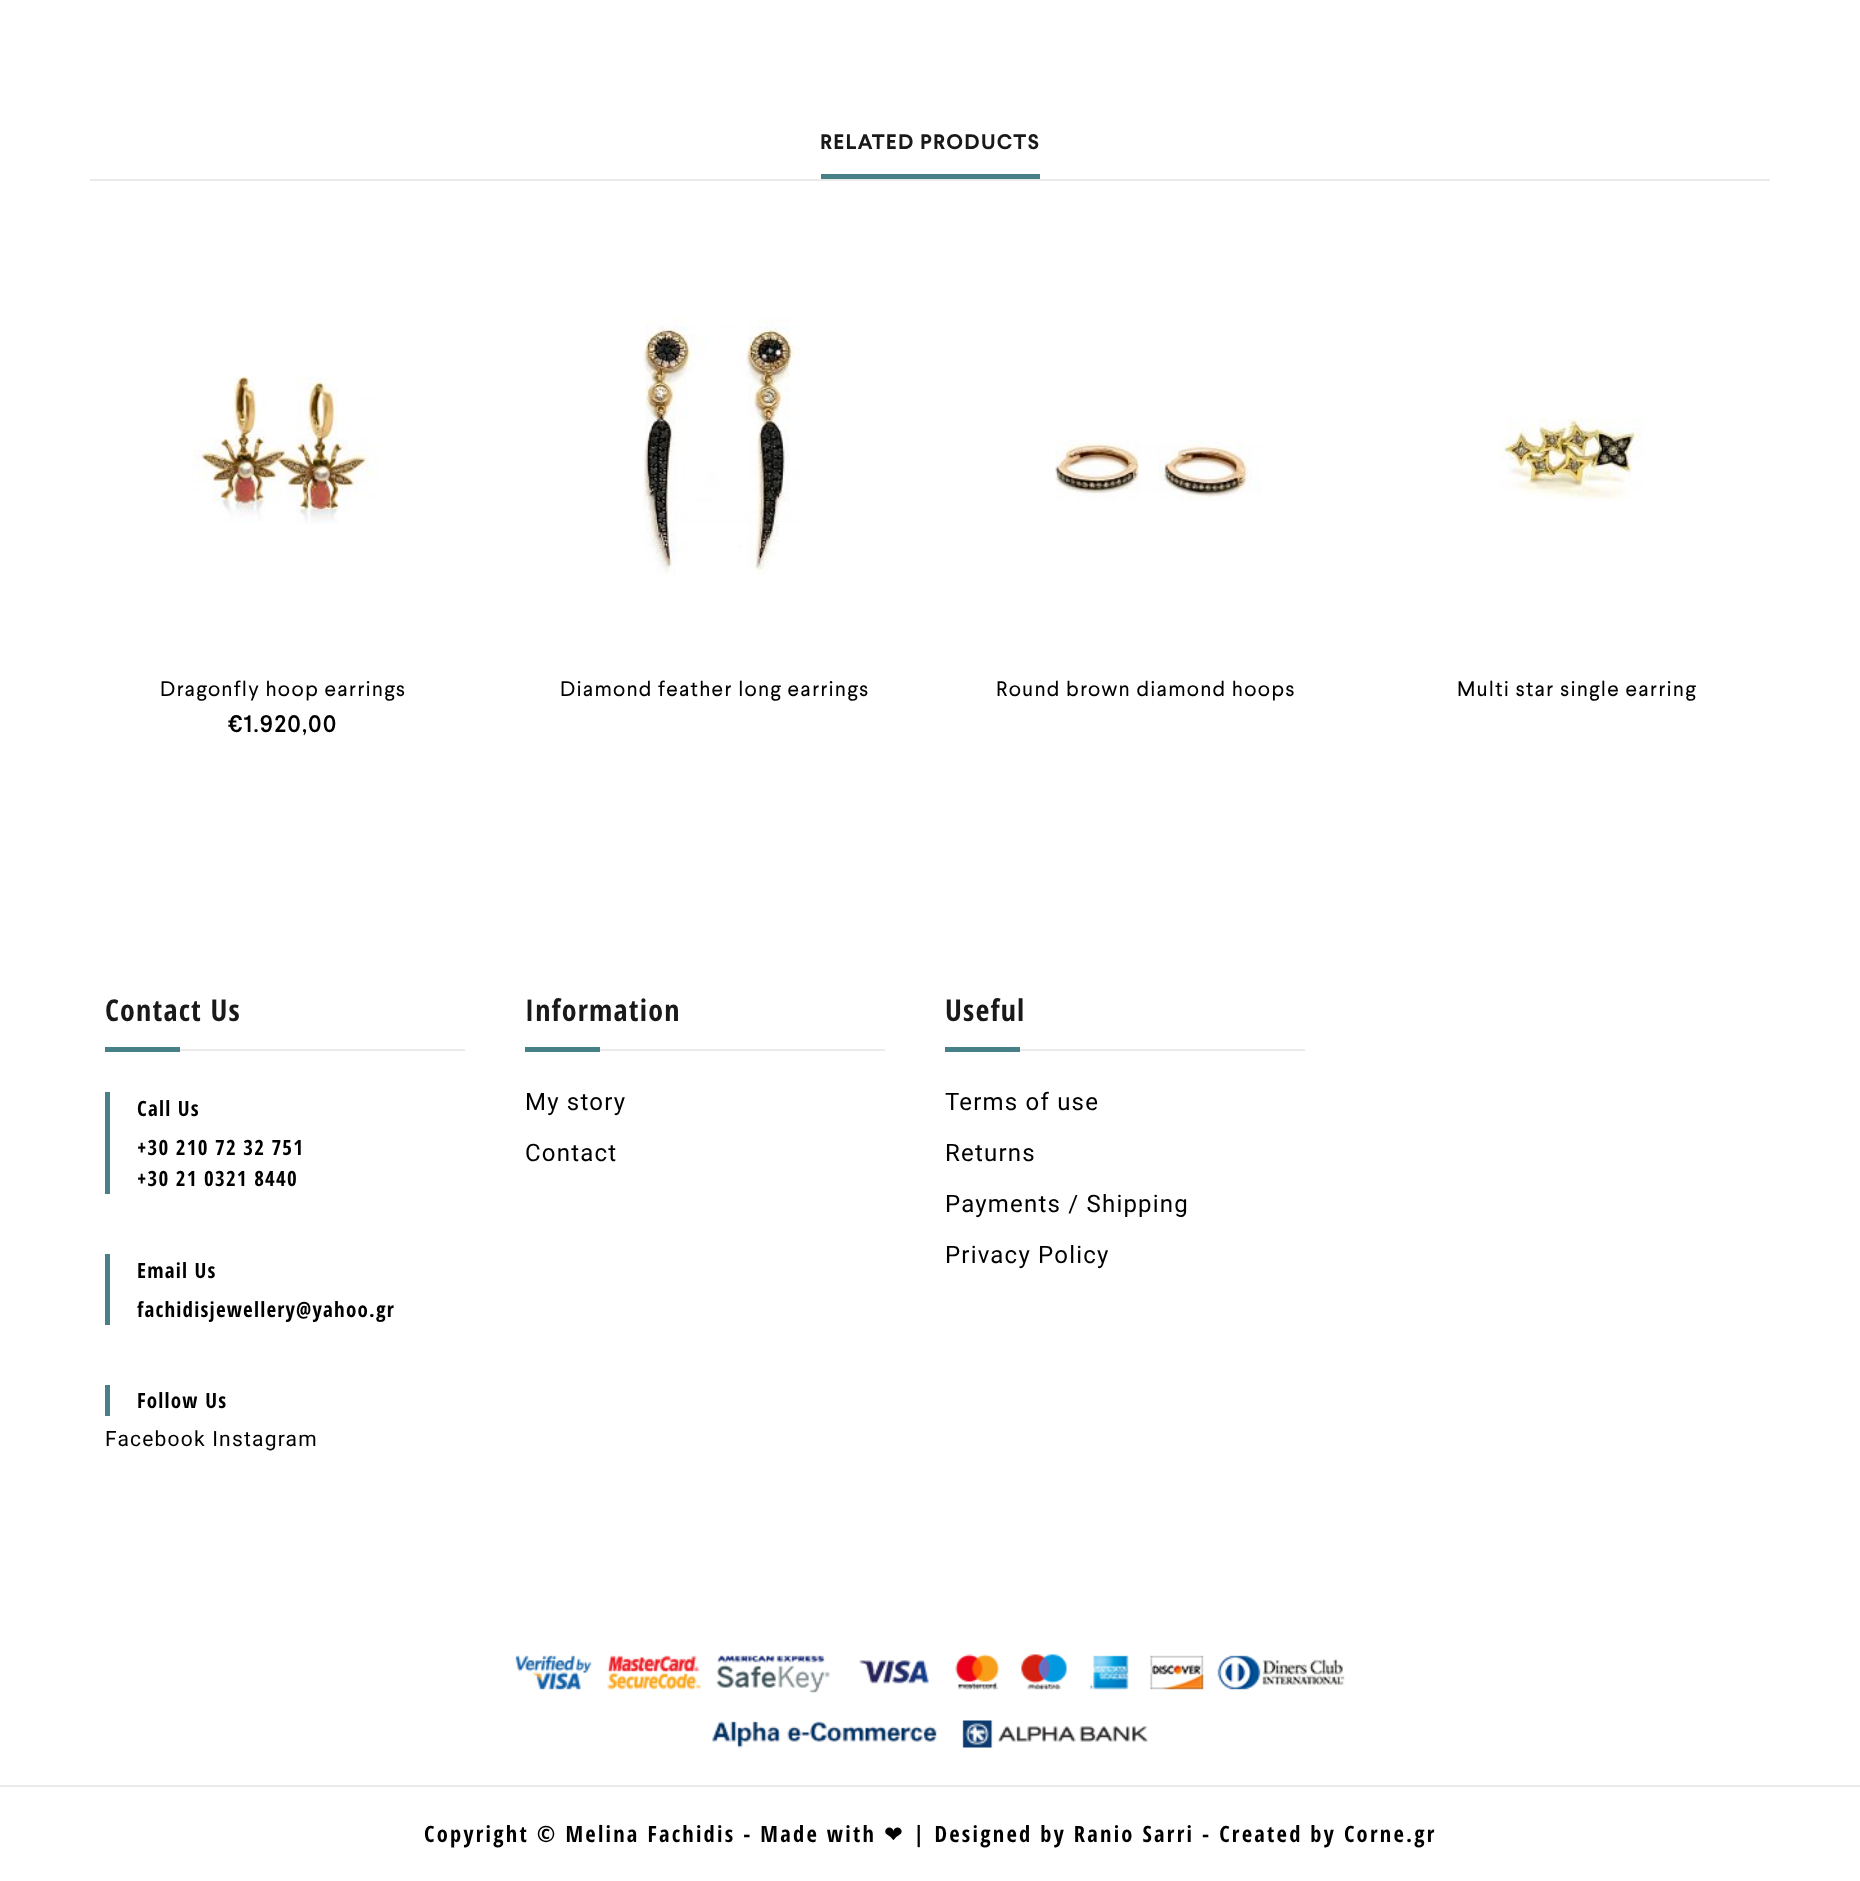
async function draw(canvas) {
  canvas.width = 1860;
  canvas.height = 1881;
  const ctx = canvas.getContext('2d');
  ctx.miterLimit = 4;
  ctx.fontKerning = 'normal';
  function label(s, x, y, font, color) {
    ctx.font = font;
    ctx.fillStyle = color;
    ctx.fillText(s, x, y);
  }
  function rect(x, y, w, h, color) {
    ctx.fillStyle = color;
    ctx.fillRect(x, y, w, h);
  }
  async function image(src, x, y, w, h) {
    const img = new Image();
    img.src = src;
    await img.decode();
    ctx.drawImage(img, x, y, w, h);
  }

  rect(0, 0, 1860, 1881, '#fff');
  rect(821, 174, 219, 5, '#478087');
  ctx.letterSpacing = '1.2px';
  label('RELATED PRODUCTS', 820, 149, 'bold 21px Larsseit', '#191919');
  rect(90, 179, 1680, 2, '#ebebeb');
  await image('assets/img1.png', 192, 376, 187, 148);
  label('Dragonfly hoop earrings', 160, 696, '21px Larsseit', '#000');
  label('€1.920,00', 228, 732, '500 24px Larsseit', '#000');
  await image('assets/img2.png', 643, 316, 157, 259);
  label('Diamond feather long earrings', 560, 696, '21px Larsseit', '#000');
  await image('assets/img3.png', 1055, 439, 207, 62);
  label('Round brown diamond hoops', 996, 696, '21px Larsseit', '#000');
  await image('assets/img4.png', 1499, 418, 145, 83);
  label('Multi star single earring', 1457, 696, '21px Larsseit', '#000');
  rect(180, 1049, 285, 2, '#ebebeb');
  label('Contact Us', 105, 1021, 'bold 30px Open Sans Condensed', '#191919');
  rect(105, 1047, 75, 5, '#478087');
  rect(105, 1092, 5, 102, '#478087');
  label('Call Us', 137, 1116, 'bold 21px Open Sans Condensed', '#000');
  label('+30 210 72 32 751', 137, 1155, 'bold 21px Open Sans Condensed', '#000');
  label('+30 21 0321 8440', 137, 1186, 'bold 21px Open Sans Condensed', '#000');
  rect(105, 1254, 5, 71, '#478087');
  label('Email Us', 137, 1278, 'bold 21px Open Sans Condensed', '#000');
  label('fachidisjewellery@yahoo.gr', 137, 1317, 'bold 21px Open Sans Condensed', '#000');
  rect(105, 1385, 5, 31, '#478087');
  label('Follow Us', 137, 1408, 'bold 21px Open Sans Condensed', '#000');
  label('Facebook Instagram', 105, 1446, '21px Roboto', '#000');
  rect(600, 1049, 285, 2, '#ebebeb');
  label('Information', 525, 1021, 'bold 30px Open Sans Condensed', '#191919');
  rect(525, 1047, 75, 5, '#478087');
  label('My story', 525, 1110, '24px Roboto', '#000');
  label('Contact', 525, 1161, '24px Roboto', '#000');
  rect(1020, 1049, 285, 2, '#ebebeb');
  label('Useful', 945, 1021, 'bold 30px Open Sans Condensed', '#191919');
  rect(945, 1047, 75, 5, '#478087');
  label('Terms of use', 945, 1110, '24px Roboto', '#000');
  label('Returns', 945, 1161, '24px Roboto', '#000');
  label('Payments / Shipping', 945, 1212, '24px Roboto', '#000');
  label('Privacy Policy', 945, 1263, '24px Roboto', '#000');
  await image('assets/img5.png', 515, 1654, 830, 94);
  rect(0, 1785, 1860, 2, '#ebebeb');
  ctx.letterSpacing = '2.25px';
  label('Copyright © Melina Fachidis - Made with', 424, 1842, 'bold 22.5px Open Sans Condensed', '#000');
  label('❤', 884, 1842, '22.5px DejaVu Sans', '#000');
  label('| Designed by Ranio Sarri - Created by Corne.gr', 913, 1842, 'bold 22.5px Open Sans Condensed', '#000');
}

draw(document.querySelector('canvas'));
